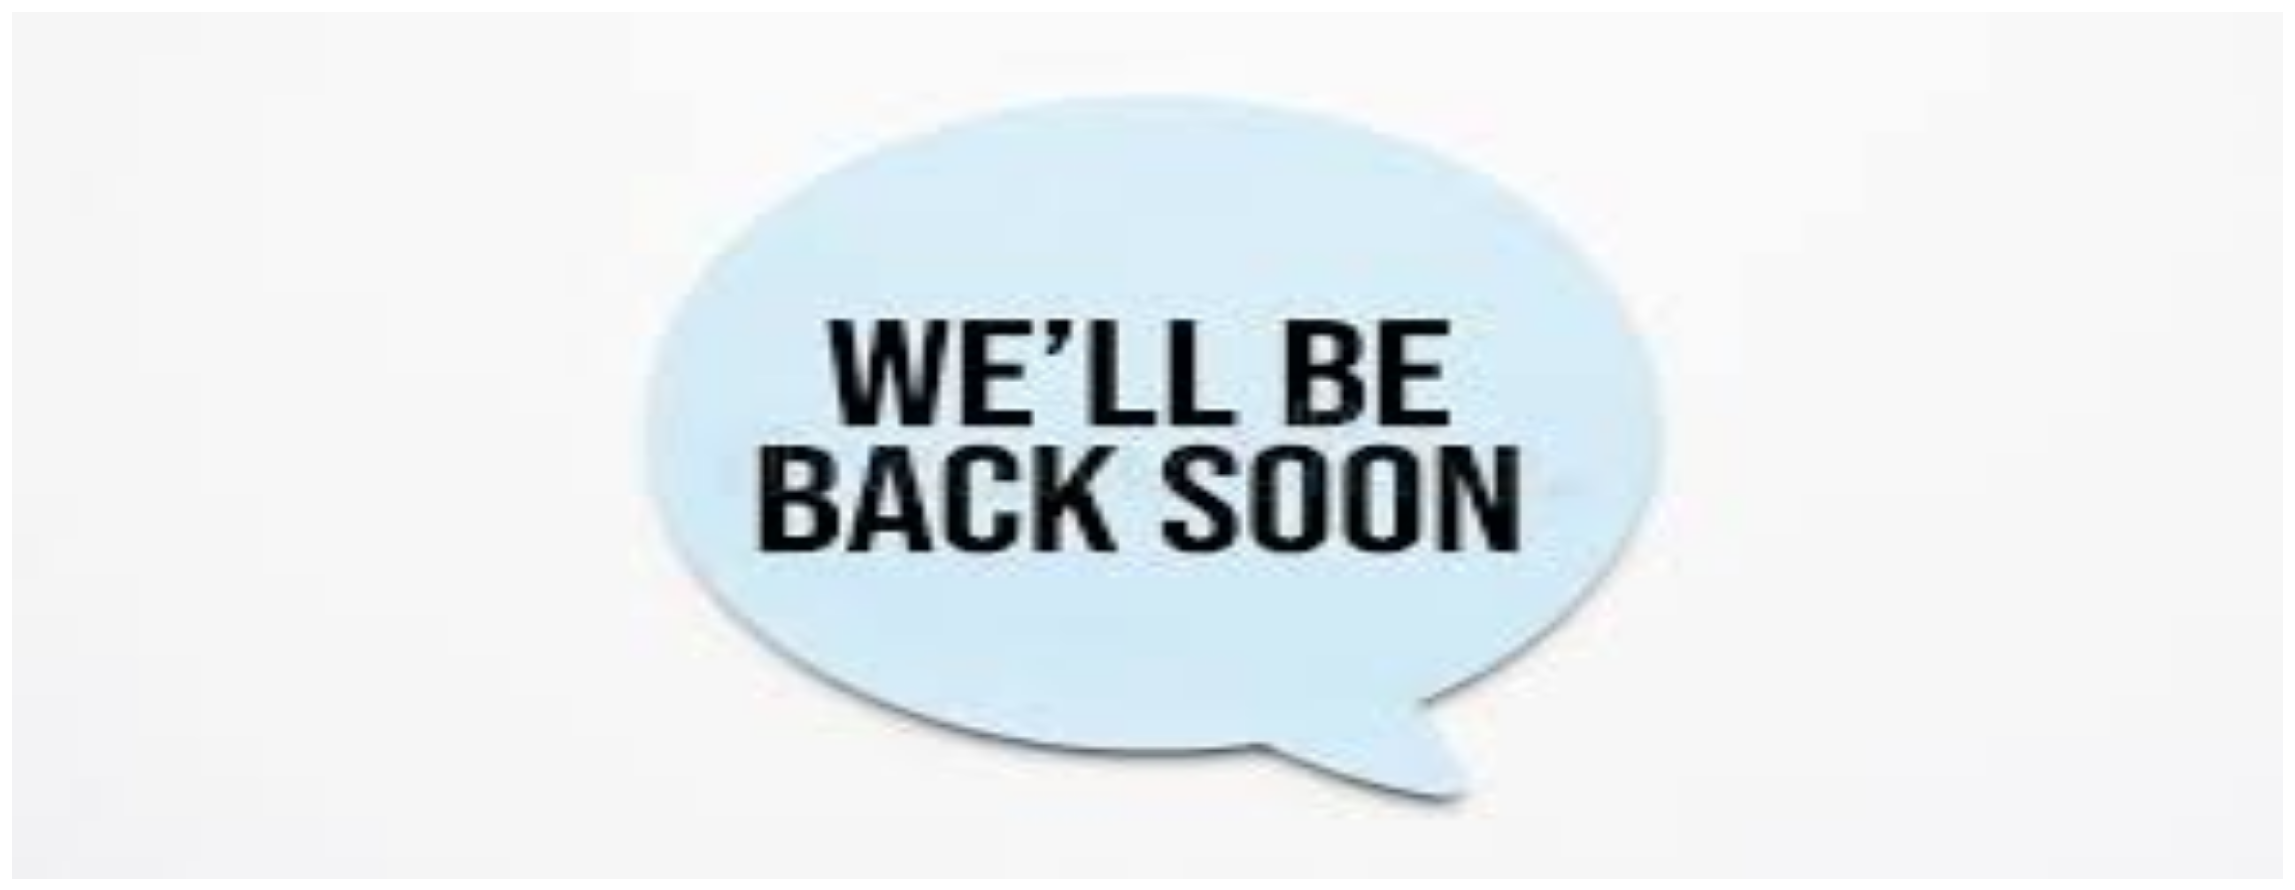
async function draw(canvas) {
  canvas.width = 2295;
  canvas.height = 890;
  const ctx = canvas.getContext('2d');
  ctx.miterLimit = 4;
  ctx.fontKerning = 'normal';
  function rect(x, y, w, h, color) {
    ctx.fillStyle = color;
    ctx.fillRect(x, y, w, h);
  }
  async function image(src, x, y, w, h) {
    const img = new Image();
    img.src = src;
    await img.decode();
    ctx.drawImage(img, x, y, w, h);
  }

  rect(0, 0, 2295, 890, '#fff');
  await image('assets/img1.png', 12, 12, 2271, 867);
}

draw(document.querySelector('canvas'));
